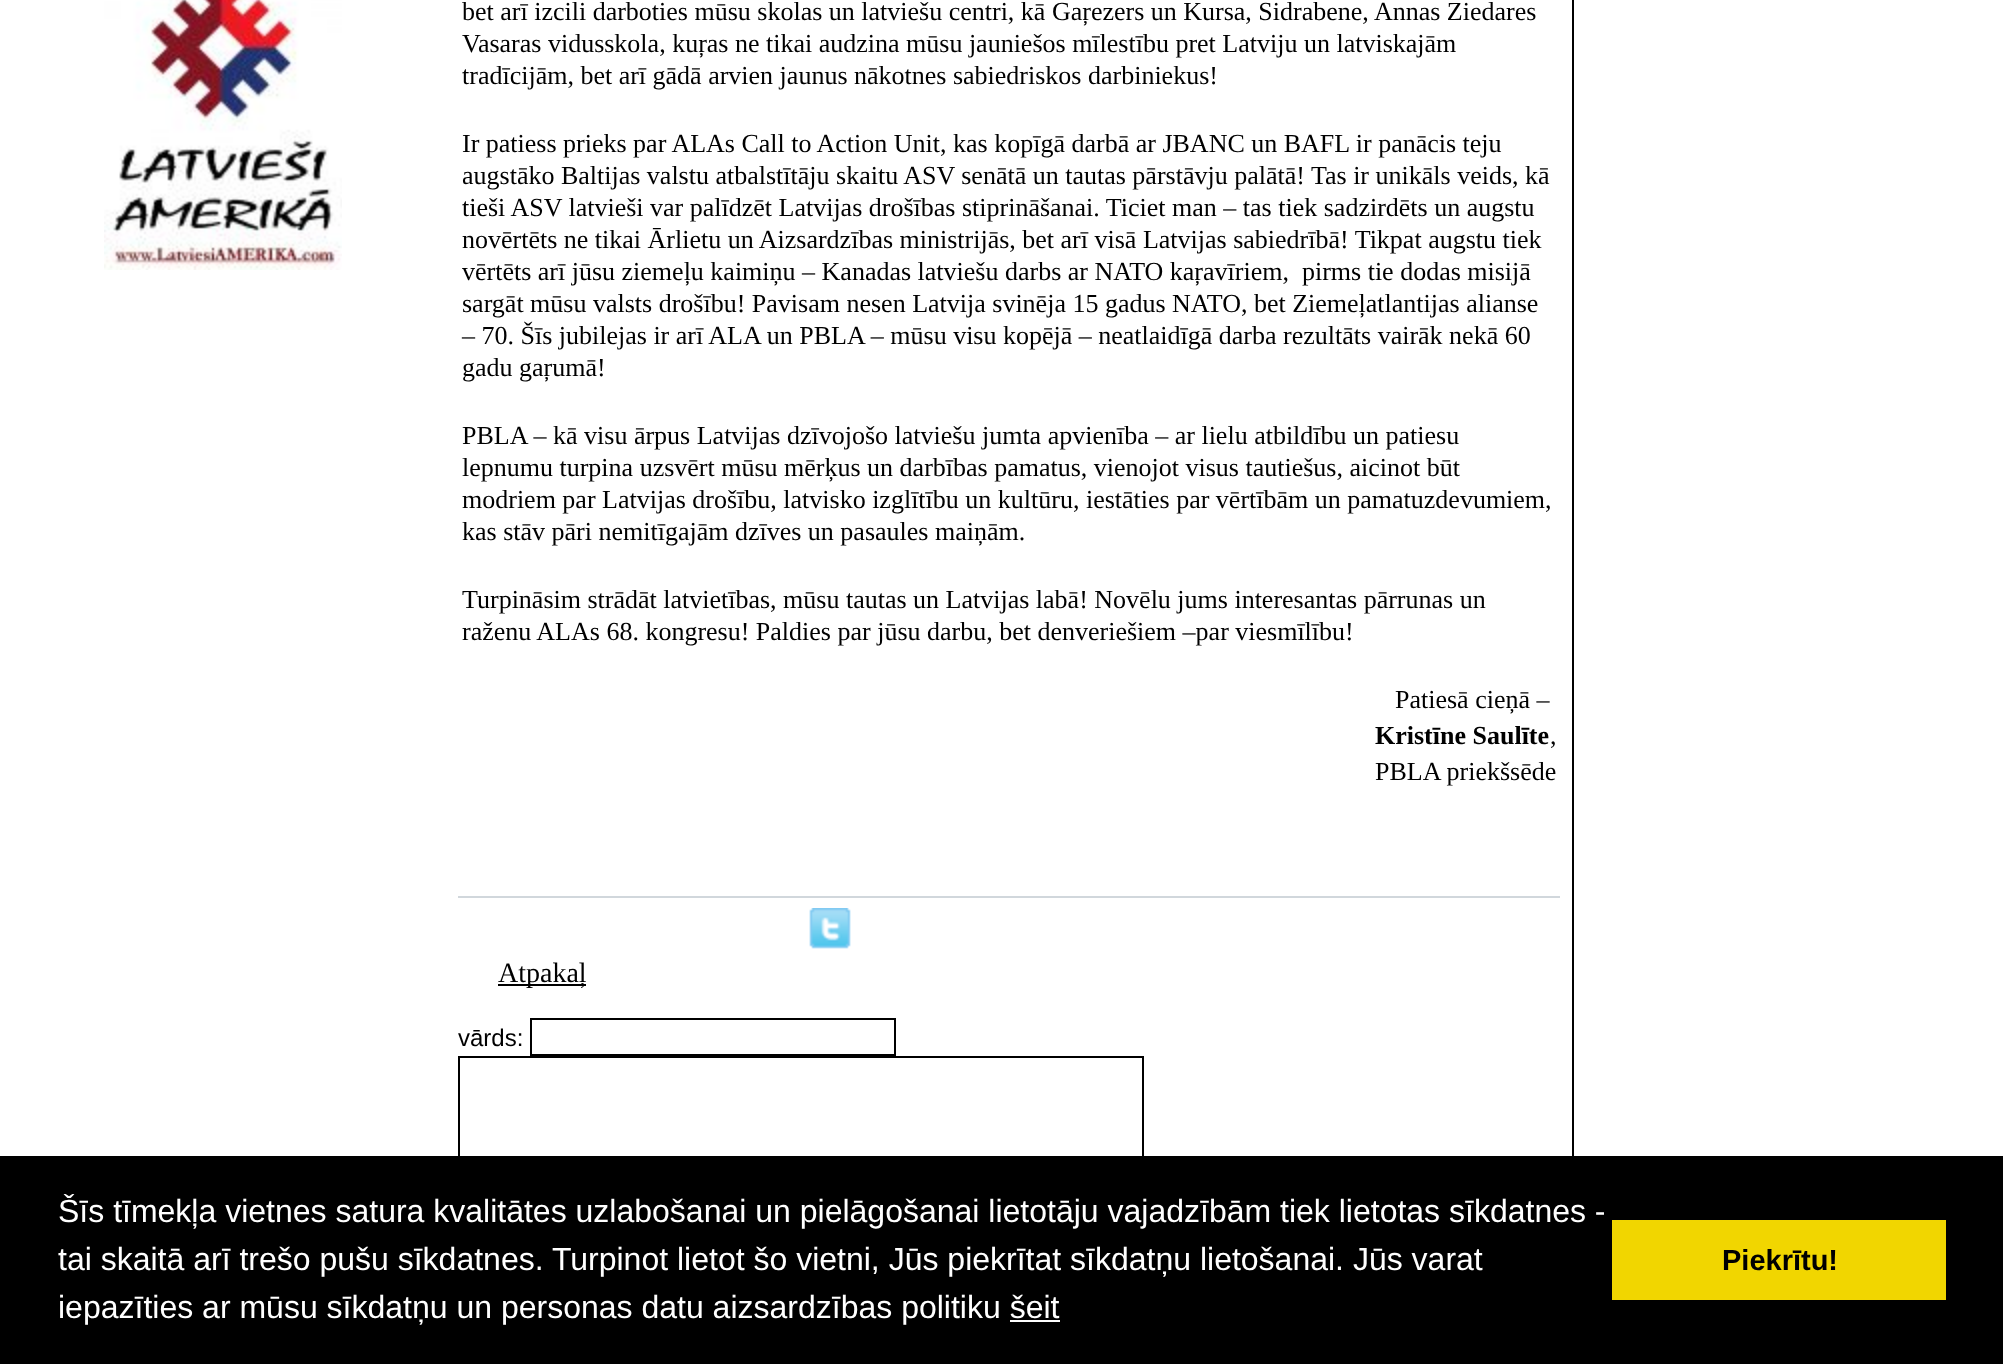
async function draw(canvas) {
  canvas.width = 2003;
  canvas.height = 1364;
  const ctx = canvas.getContext('2d');
  ctx.miterLimit = 4;
  ctx.fontKerning = 'normal';
  function label(s, x, y, font, color) {
    ctx.font = font;
    ctx.fillStyle = color;
    ctx.fillText(s, x, y);
  }
  function rect(x, y, w, h, color) {
    ctx.fillStyle = color;
    ctx.fillRect(x, y, w, h);
  }
  async function image(src, x, y, w, h) {
    const img = new Image();
    img.src = src;
    await img.decode();
    ctx.drawImage(img, x, y, w, h);
  }

  rect(0, 0, 2003, 1364, '#fff');
  await image('assets/img1.png', 104, 0, 238, 270);
  rect(1572, 0, 2, 1156, '#000');
  label('bet arī izcili darboties mūsu skolas un latviešu centri, kā Gaŗezers un Kursa, Sidrabene, Annas Ziedares', 462, 20, '26px Liberation Serif', '#000');
  label('Vasaras vidusskola, kuŗas ne tikai audzina mūsu jauniešos mīlestību pret Latviju un latviskajām', 462, 52, '26px Liberation Serif', '#000');
  label('tradīcijām, bet arī gādā arvien jaunus nākotnes sabiedriskos darbiniekus!', 462, 84, '26px Liberation Serif', '#000');
  label('Ir patiess prieks par ALAs Call to Action Unit, kas kopīgā darbā ar JBANC un BAFL ir panācis teju', 462, 152, '26px Liberation Serif', '#000');
  label('augstāko Baltijas valstu atbalstītāju skaitu ASV senātā un tautas pārstāvju palātā! Tas ir unikāls veids, kā', 462, 184, '26px Liberation Serif', '#000');
  label('tieši ASV latvieši var palīdzēt Latvijas drošības stiprināšanai. Ticiet man – tas tiek sadzirdēts un augstu', 462, 216, '26px Liberation Serif', '#000');
  label('novērtēts ne tikai Ārlietu un Aizsardzības ministrijās, bet arī visā Latvijas sabiedrībā! Tikpat augstu tiek', 462, 248, '26px Liberation Serif', '#000');
  label('vērtēts arī jūsu ziemeļu kaimiņu – Kanadas latviešu darbs ar NATO kaŗavīriem,  pirms tie dodas misijā', 462, 280, '26px Liberation Serif', '#000');
  label('sargāt mūsu valsts drošību! Pavisam nesen Latvija svinēja 15 gadus NATO, bet Ziemeļatlantijas alianse', 462, 312, '26px Liberation Serif', '#000');
  label('– 70. Šīs jubilejas ir arī ALA un PBLA – mūsu visu kopējā – neatlaidīgā darba rezultāts vairāk nekā 60', 462, 344, '26px Liberation Serif', '#000');
  label('gadu gaŗumā!', 462, 376, '26px Liberation Serif', '#000');
  label('PBLA – kā visu ārpus Latvijas dzīvojošo latviešu jumta apvienība – ar lielu atbildību un patiesu', 462, 444, '26px Liberation Serif', '#000');
  label('lepnumu turpina uzsvērt mūsu mērķus un darbības pamatus, vienojot visus tautiešus, aicinot būt', 462, 476, '26px Liberation Serif', '#000');
  label('modriem par Latvijas drošību, latvisko izglītību un kultūru, iestāties par vērtībām un pamatuzdevumiem,', 462, 508, '26px Liberation Serif', '#000');
  label('kas stāv pāri nemitīgajām dzīves un pasaules maiņām.', 462, 540, '26px Liberation Serif', '#000');
  label('Turpināsim strādāt latvietības, mūsu tautas un Latvijas labā! Novēlu jums interesantas pārrunas un', 462, 608, '26px Liberation Serif', '#000');
  label('raženu ALAs 68. kongresu! Paldies par jūsu darbu, bet denveriešiem –par viesmīlību!', 462, 640, '26px Liberation Serif', '#000');
  label('Patiesā cieņā –', 1395, 708, '26px Liberation Serif', '#000');
  label('Kristīne Saulīte', 1375, 744, 'bold 26px Liberation Serif', '#000');
  label(',', 1550, 744, '26px Liberation Serif', '#000');
  label('PBLA priekšsēde', 1375, 780, '26px Liberation Serif', '#000');
  rect(458, 896, 1102, 2, '#d1d7dc');
  await image('assets/img2.png', 809, 908, 42, 41);
  rect(498, 984, 88, 2, '#000');
  label('Atpakaļ', 498, 982, '28px Liberation Serif', '#000');
  label('vārds:', 458, 1046, '24px Liberation Sans', '#000');
  ctx.strokeStyle = '#000';
  ctx.lineWidth = 2;
  ctx.strokeRect(531, 1019, 364, 36);
  ctx.strokeRect(459, 1057, 684, 130);
  rect(0, 1156, 2003, 208, '#000');
  label('Šīs tīmekļa vietnes satura kvalitātes uzlabošanai un pielāgošanai lietotāju vajadzībām tiek lietotas sīkdatnes -', 58, 1222, '32px Liberation Sans', '#fff');
  label('tai skaitā arī trešo pušu sīkdatnes. Turpinot lietot šo vietni, Jūs piekrītat sīkdatņu lietošanai. Jūs varat', 58, 1270, '32px Liberation Sans', '#fff');
  label('iepazīties ar mūsu sīkdatņu un personas datu aizsardzības politiku šeit', 58, 1318, '32px Liberation Sans', '#fff');
  rect(1010, 1320, 50, 2, '#fff');
  rect(1612, 1220, 334, 80, '#f1d600');
  label('Piekrītu!', 1722, 1270, 'bold 29px Liberation Sans', '#000');
}

draw(document.querySelector('canvas'));
